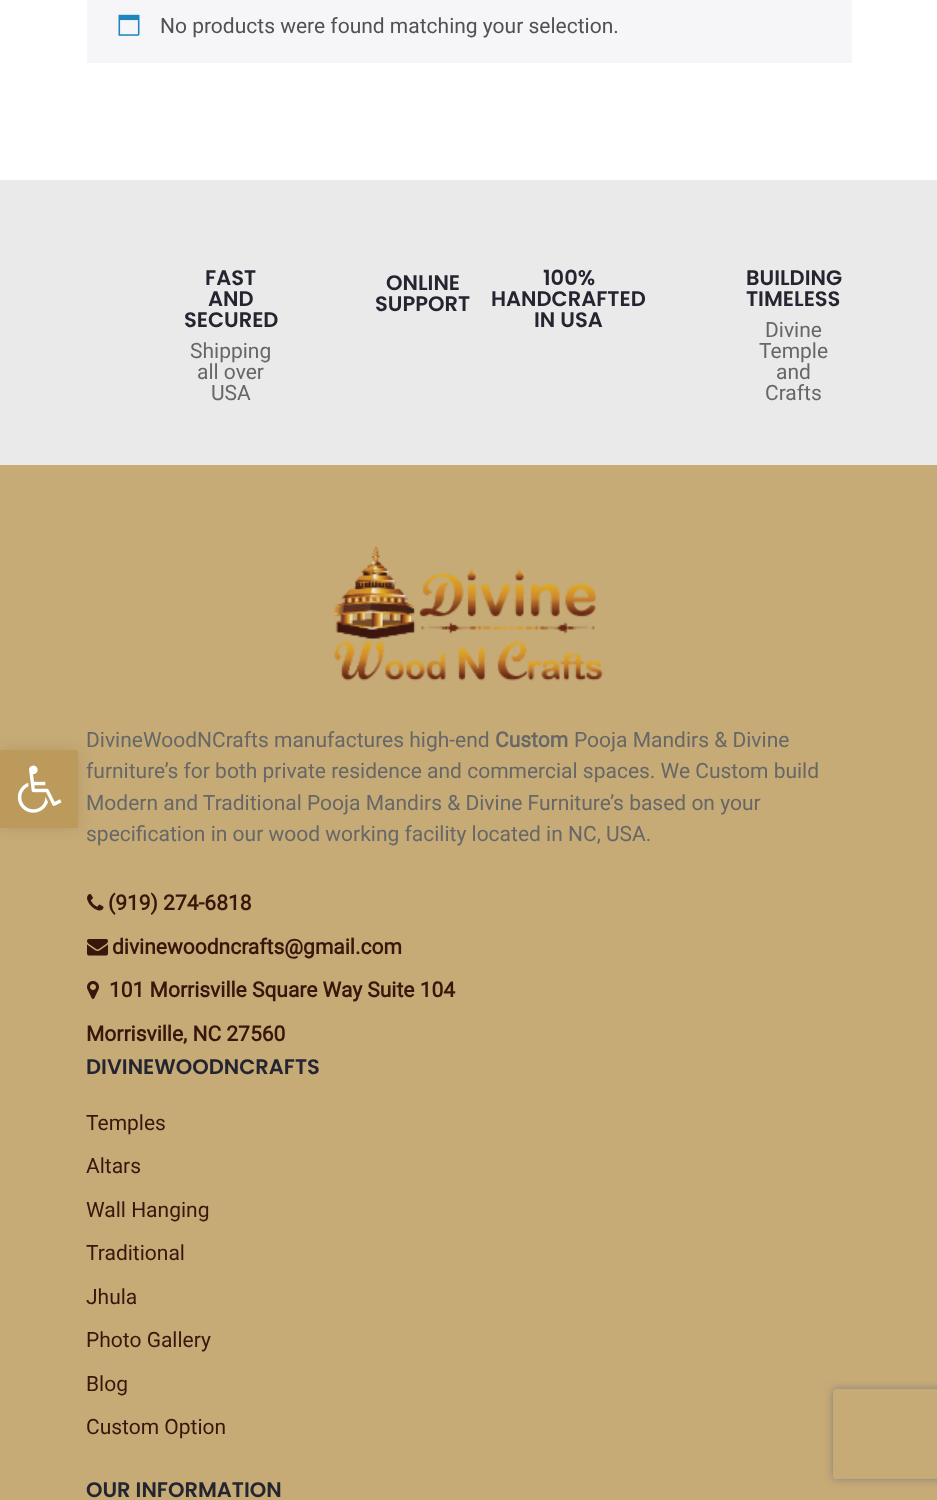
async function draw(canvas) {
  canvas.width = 937;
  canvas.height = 1500;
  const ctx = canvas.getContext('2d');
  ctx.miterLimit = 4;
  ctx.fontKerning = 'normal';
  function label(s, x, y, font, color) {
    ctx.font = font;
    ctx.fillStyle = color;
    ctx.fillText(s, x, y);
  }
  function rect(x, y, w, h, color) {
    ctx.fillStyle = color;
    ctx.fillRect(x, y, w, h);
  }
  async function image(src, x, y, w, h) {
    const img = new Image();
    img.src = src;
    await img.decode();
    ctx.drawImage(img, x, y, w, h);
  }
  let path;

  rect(0, 0, 937, 1500, '#fff');
  rect(0, 465, 937, 1035, '#c7ab76');
  ctx.fillStyle = '#0000001a';
  ctx.filter = 'blur(7.5px)';
  ctx.beginPath();
  ctx.rect(0, 750, 78, 78);
  ctx.fill();
  ctx.filter = 'none';
  rect(0, 750, 78, 78, '#bc9a5c');
  await image('assets/img1.png', 17, 765, 45, 48);
  rect(87, 0, 765, 63, '#f6f5f8');
  await image('assets/img2.png', 118, 14, 22, 22);
  label('No products were found matching your selection.', 160, 33, '21px Roboto', '#515151');
  rect(0, 180, 937, 285, '#eaeaea');
  label('FAST', 205, 285, '600 21px Poppins', '#252531');
  label('AND', 208, 306, '600 21px Poppins', '#252531');
  label('SECURED', 184, 327, '600 21px Poppins', '#252531');
  label('Shipping', 190, 358, '21px Roboto', '#676767');
  label('all over', 197, 379, '21px Roboto', '#676767');
  label('USA', 211, 400, '21px Roboto', '#676767');
  label('ONLINE', 386, 290, '600 21px Poppins', '#252531');
  label('SUPPORT', 375, 311, '600 21px Poppins', '#252531');
  label('100%', 543, 285, '600 21px Poppins', '#252531');
  label('HANDCRAFTED', 491, 306, '600 21px Poppins', '#252531');
  label('IN USA', 534, 327, '600 21px Poppins', '#252531');
  label('BUILDING', 746, 285, '600 21px Poppins', '#252531');
  label('TIMELESS', 746, 306, '600 21px Poppins', '#252531');
  label('Divine', 765, 337, '21px Roboto', '#676767');
  label('Temple', 759, 358, '21px Roboto', '#676767');
  label('and', 776, 379, '21px Roboto', '#676767');
  label('Crafts', 765, 400, '21px Roboto', '#676767');
  await image('assets/img3.png', 334, 545, 270, 136);
  label('DivineWoodNCrafts manufactures high-end', 86, 747, '21px Roboto', '#676767');
  label('Custom', 495, 747, 'bold 21px Roboto', '#676767');
  label('Pooja Mandirs & Divine', 574, 747, '21px Roboto', '#676767');
  label('furniture’s for both private residence and commercial spaces. We Custom build', 86, 778, '21px Roboto', '#676767');
  label('Modern and Traditional Pooja Mandirs & Divine Furniture’s based on your', 86, 810, '21px Roboto', '#676767');
  label('specification in our wood working facility located in NC, USA.', 86, 841, '21px Roboto', '#676767');
  await image('assets/img4.png', 87, 894, 17, 17);
  label('(919) 274-6818', 108, 910, 'bold 21px Roboto', '#39160c');
  await image('assets/img5.png', 87, 939, 21, 17);
  label('divinewoodncrafts@gmail.com', 112, 954, 'bold 21px Roboto', '#39160c');
  await image('assets/img6.png', 87, 981, 12, 18);
  label('101 Morrisville Square Way Suite 104', 109, 997, 'bold 21px Roboto', '#39160c');
  label('Morrisville, NC 27560', 86, 1041, 'bold 21px Roboto', '#39160c');
  label('DIVINEWOODNCRAFTS', 86, 1074, '600 21px Poppins', '#252531');
  label('Temples', 86, 1130, '21px Roboto', '#39160c');
  label('Altars', 86, 1173, '21px Roboto', '#39160c');
  label('Wall Hanging', 86, 1217, '21px Roboto', '#39160c');
  label('Traditional', 86, 1260, '21px Roboto', '#39160c');
  label('Jhula', 86, 1304, '21px Roboto', '#39160c');
  label('Photo Gallery', 86, 1347, '21px Roboto', '#39160c');
  label('Blog', 86, 1391, '21px Roboto', '#39160c');
  label('Custom Option', 86, 1434, '21px Roboto', '#39160c');
  label('OUR INFORMATION', 86, 1497, '600 21px Poppins', '#252531');
  ctx.save();
  path = new Path2D('M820 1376H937V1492H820ZM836 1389H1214C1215.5 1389 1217 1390.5 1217 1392V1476C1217 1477.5 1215.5 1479 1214 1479H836C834.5 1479 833 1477.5 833 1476V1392C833 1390.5 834.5 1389 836 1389Z');
  ctx.clip(path, 'evenodd');
  ctx.fillStyle = '#808080';
  ctx.filter = 'blur(4px)';
  ctx.beginPath();
  ctx.roundRect(833, 1389, 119, 90, 3);
  ctx.fill();
  ctx.filter = 'none';
  ctx.restore();
}

draw(document.querySelector('canvas'));
